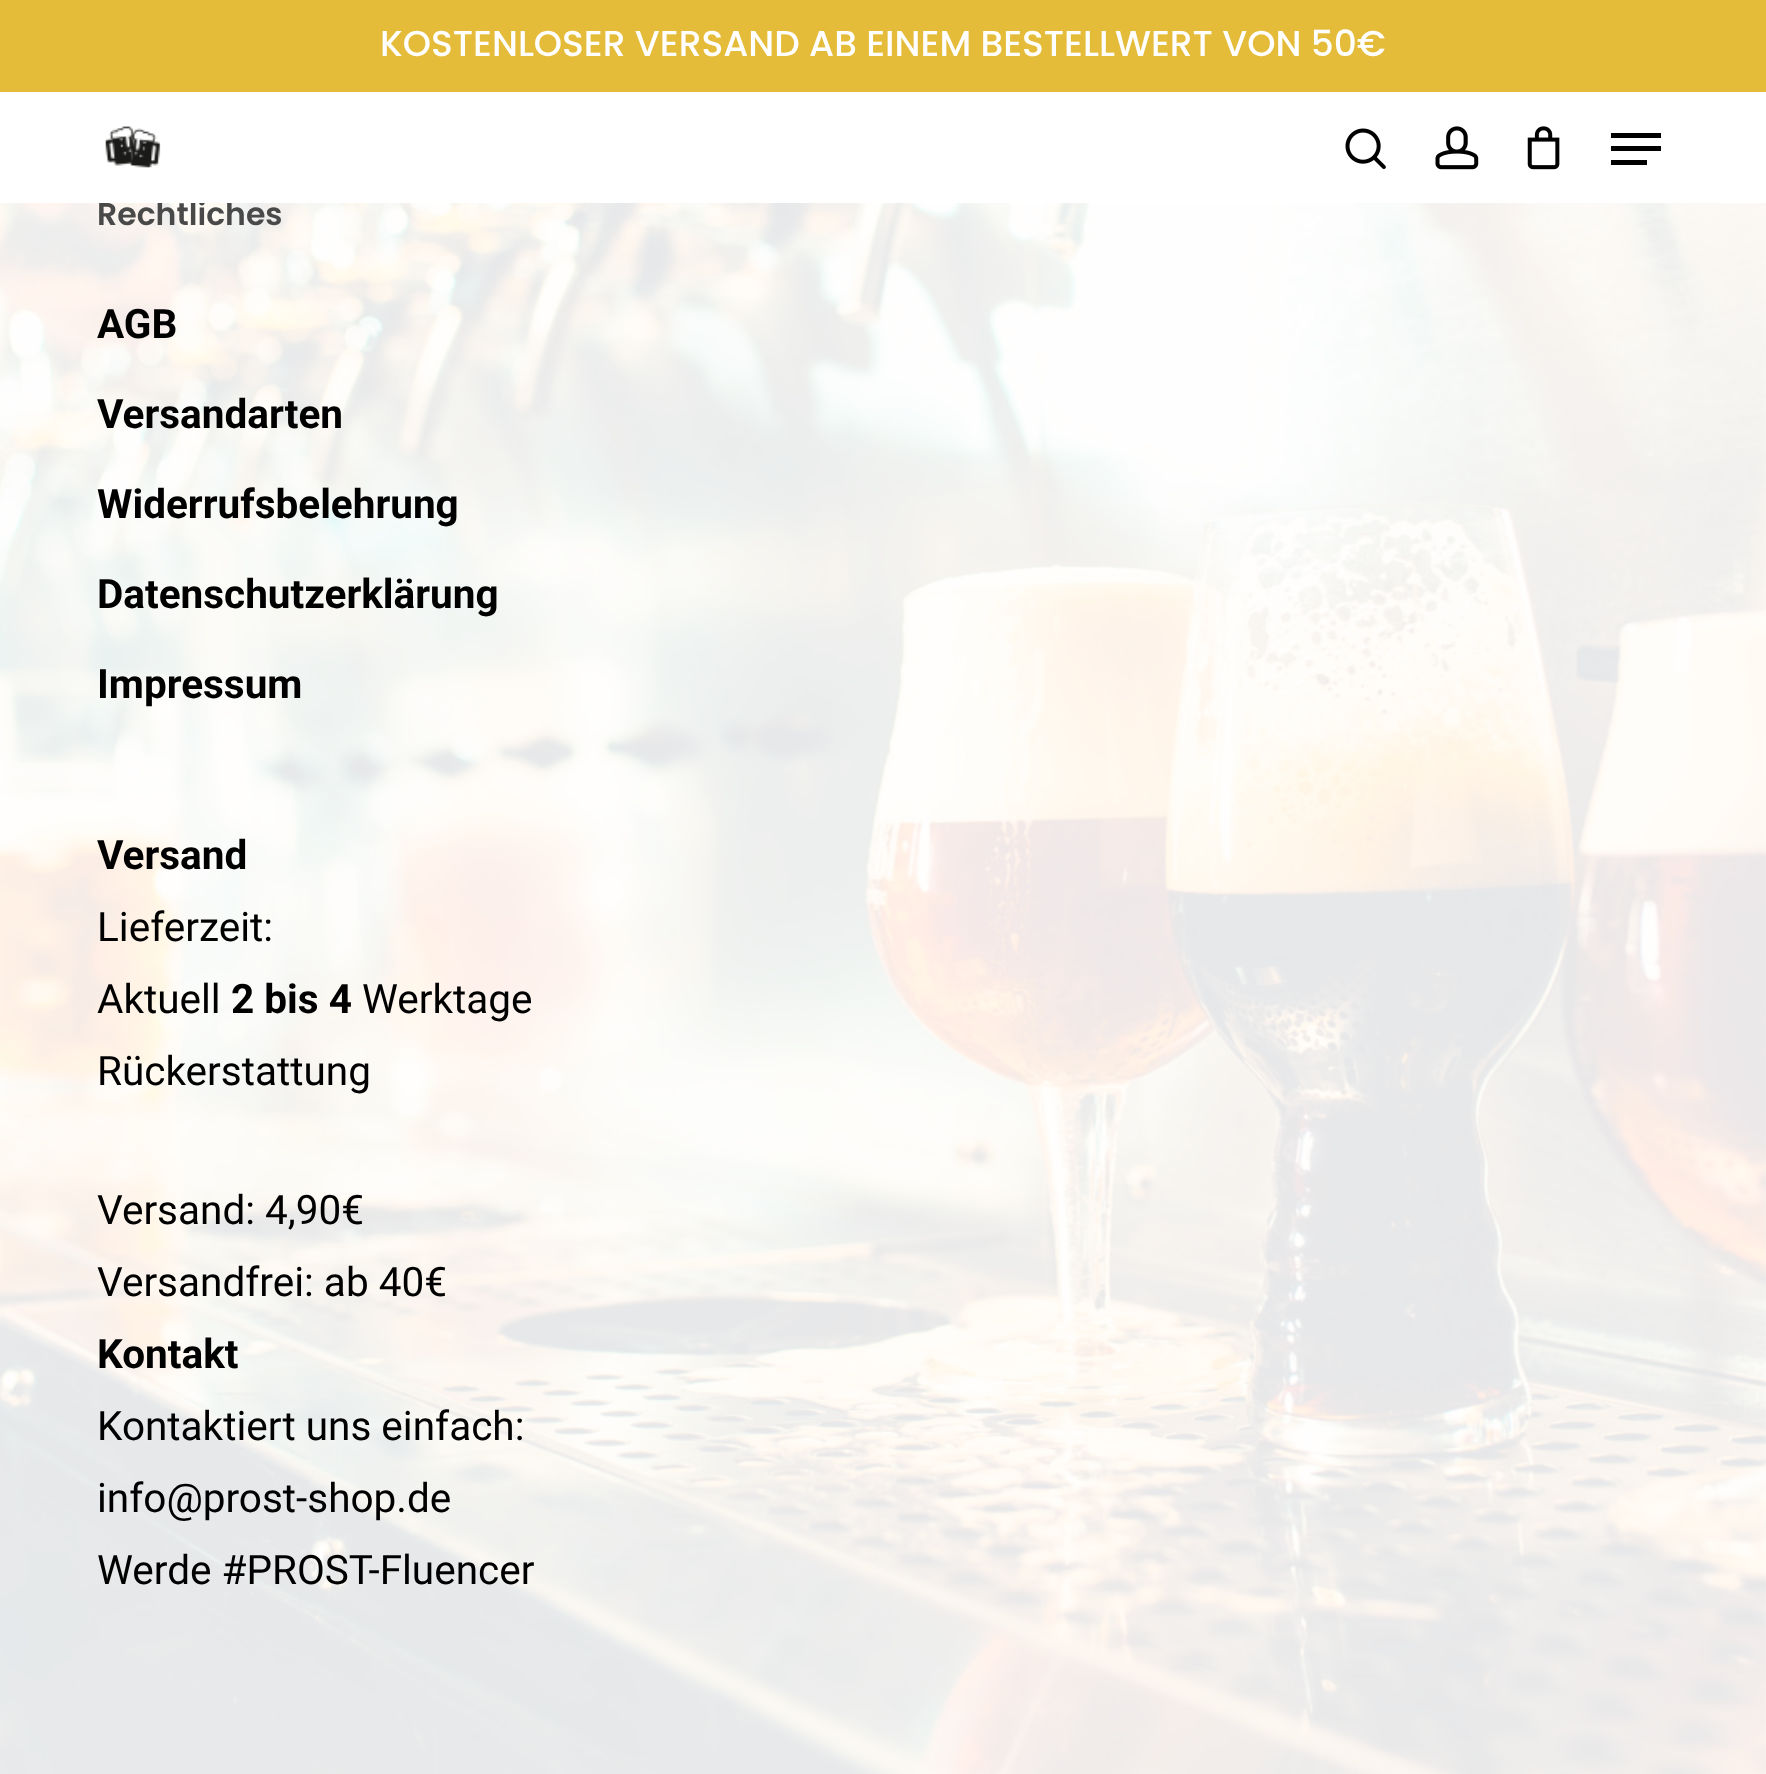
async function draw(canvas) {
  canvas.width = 1766;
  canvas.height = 1774;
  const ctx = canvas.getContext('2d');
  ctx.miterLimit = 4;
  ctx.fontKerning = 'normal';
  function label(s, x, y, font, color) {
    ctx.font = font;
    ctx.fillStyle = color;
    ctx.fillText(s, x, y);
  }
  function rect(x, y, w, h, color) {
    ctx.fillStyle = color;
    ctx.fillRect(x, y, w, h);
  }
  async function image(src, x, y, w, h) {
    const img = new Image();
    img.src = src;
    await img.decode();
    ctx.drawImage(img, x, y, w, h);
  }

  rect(0, 0, 1766, 1774, '#fff');
  await image('assets/img5.png', 0, 203, 1766, 1571);
  label('Rechtliches', 97, 225, '600 31.5px Poppins', '#494949');
  rect(157, 200, 75, 3, '#fff');
  rect(0, 0, 1766, 92, '#e5bc3a');
  label('KOSTENLOSER VERSAND AB EINEM BESTELLWERT VON 50€', 380, 56, '500 36px Poppins', '#fff');
  await image('assets/img1.png', 105, 126, 56, 42);
  await image('assets/img2.png', 1345, 128, 41, 41);
  await image('assets/img3.png', 1435, 126, 44, 44);
  await image('assets/img4.png', 1527, 126, 33, 44);
  rect(1611, 133, 50, 5, '#000');
  rect(1611, 160, 36, 5, '#000');
  rect(1611, 146, 50, 5, '#000');
  label('AGB', 97, 338, 'bold 40.5px Roboto', '#000');
  label('Versandarten', 97, 428, 'bold 40.5px Roboto', '#000');
  label('Widerrufsbelehrung', 97, 518, 'bold 40.5px Roboto', '#000');
  label('Datenschutzerklärung', 97, 608, 'bold 40.5px Roboto', '#000');
  label('Impressum', 97, 698, 'bold 40.5px Roboto', '#000');
  label('Versand', 97, 869, 'bold 40.5px Roboto', '#000');
  label('Lieferzeit:', 97, 941, '40.5px Roboto', '#000');
  label('Aktuell', 97, 1013, '40.5px Roboto', '#000');
  label('2 bis 4', 231, 1013, 'bold 40.5px Roboto', '#000');
  label('Werktage', 362, 1013, '40.5px Roboto', '#000');
  label('Rückerstattung', 97, 1085, '40.5px Roboto', '#000');
  label('Versand: 4,90€', 97, 1224, '40.5px Roboto', '#000');
  label('Versandfrei: ab 40€', 97, 1296, '40.5px Roboto', '#000');
  label('Kontakt', 97, 1368, 'bold 40.5px Roboto', '#000');
  label('Kontaktiert uns einfach:', 97, 1440, '40.5px Roboto', '#000');
  label('info@prost-shop.de', 97, 1512, '40.5px Roboto', '#000');
  label('Werde #PROST-Fluencer', 97, 1584, '40.5px Roboto', '#000');
}

draw(document.querySelector('canvas'));
